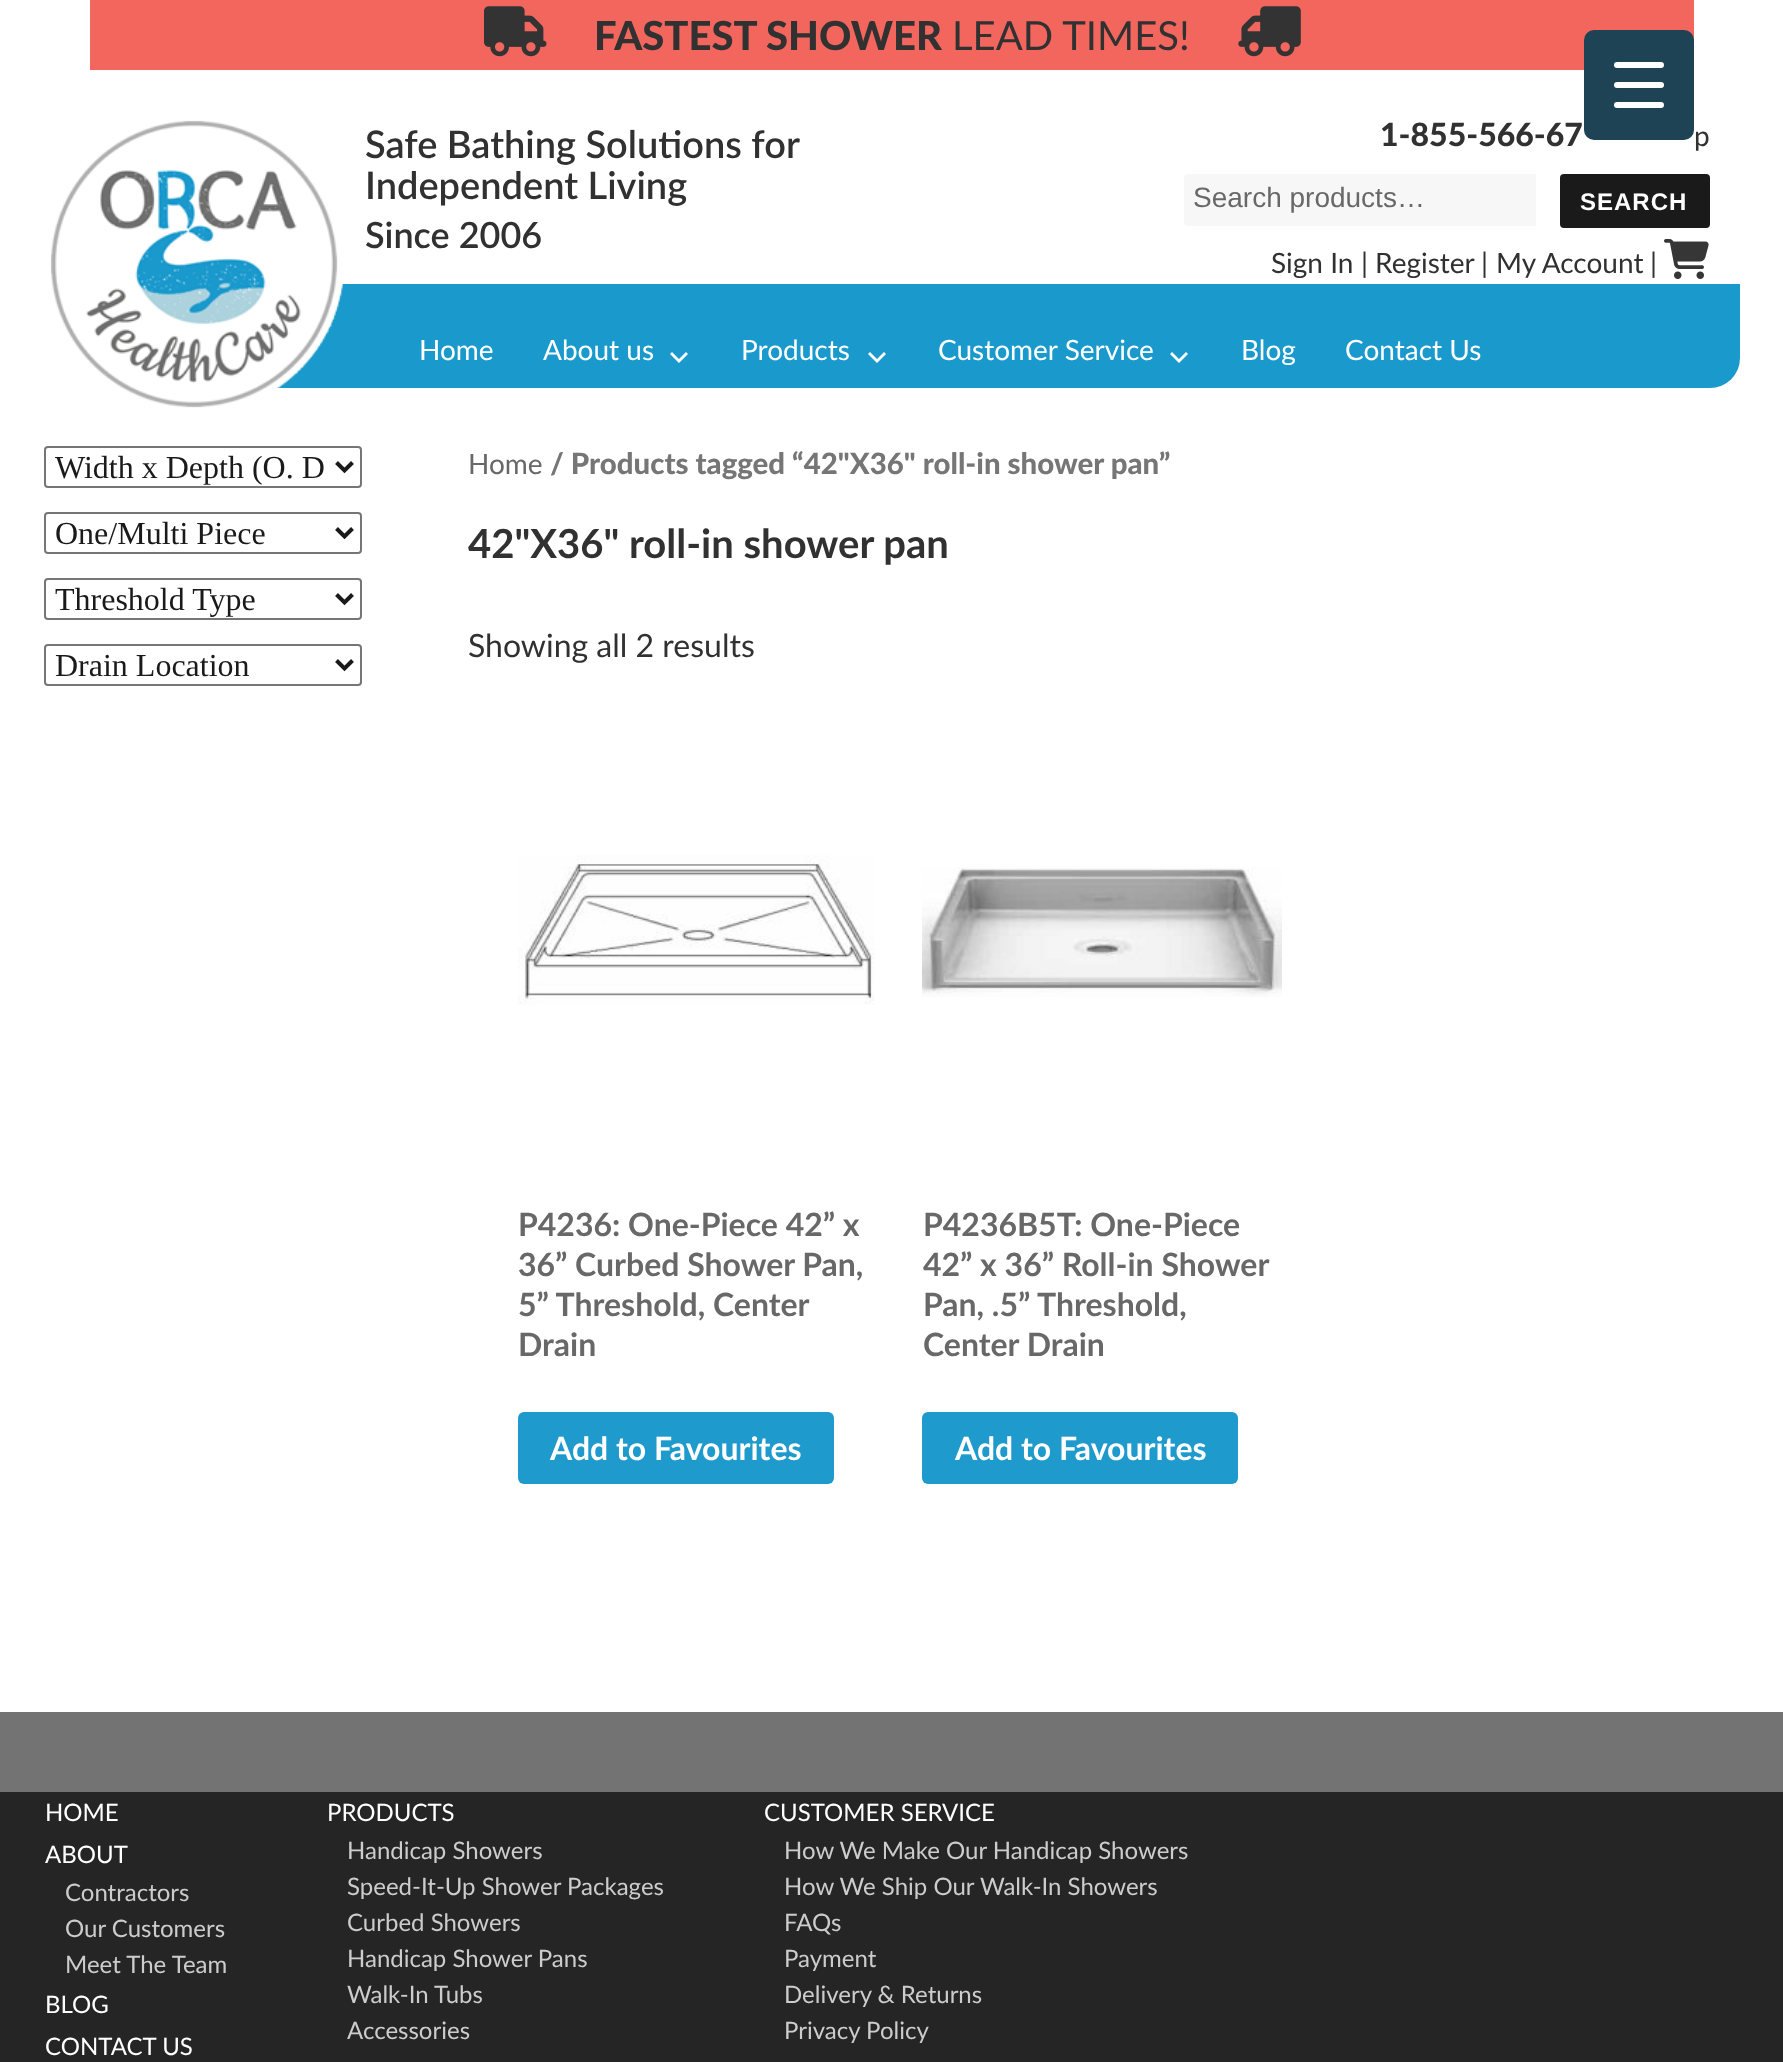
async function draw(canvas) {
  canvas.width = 1783;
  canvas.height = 2062;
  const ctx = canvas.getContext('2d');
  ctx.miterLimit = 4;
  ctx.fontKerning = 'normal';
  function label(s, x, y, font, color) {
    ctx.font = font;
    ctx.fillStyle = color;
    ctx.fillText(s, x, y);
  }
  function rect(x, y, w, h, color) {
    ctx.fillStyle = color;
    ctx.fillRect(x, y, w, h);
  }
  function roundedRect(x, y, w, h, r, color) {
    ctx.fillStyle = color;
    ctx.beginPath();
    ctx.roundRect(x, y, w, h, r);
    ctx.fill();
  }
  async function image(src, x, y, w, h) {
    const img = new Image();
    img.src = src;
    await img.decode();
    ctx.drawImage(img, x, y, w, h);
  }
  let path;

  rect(0, 0, 1783, 2062, '#fff');
  rect(90, 0, 1604, 70, '#f2665e');
  await image('assets/img1.png', 484, 6, 63, 51);
  label('FASTEST SHOWER', 594, 50, '900 40px Lato', '#313131');
  label('LEAD TIMES!', 952, 50, '40px Lato', '#313131');
  await image('assets/img2.png', 1238, 6, 63, 51);
  ctx.fillStyle = '#1a99cc';
  ctx.beginPath();
  ctx.roundRect(194, 284, 1546, 104, [0, 0, 30, 0]);
  ctx.fill();
  await image('assets/img3.png', 50, 120, 294, 288);
  label('Safe Bathing Solutions for', 365, 158, '600 38px Lato', '#313131');
  label('Independent Living', 365, 199, '600 38px Lato', '#313131');
  label('Since 2006', 365, 248, '600 36px Lato', '#313131');
  label('1-855-566-67', 1380, 146, '900 32px Lato', '#313131');
  label('p', 1694, 146, '28px Lato', '#313131');
  ctx.fillStyle = '#f7f7f7';
  ctx.beginPath();
  ctx.roundRect(1184, 174, 352, 52, [4, 0, 0, 4]);
  ctx.fill();
  label('Search products…', 1193, 207, '28px Liberation Sans', '#686868');
  roundedRect(1560, 174, 150, 54, 4, '#1a1a1a');
  ctx.letterSpacing = '1px';
  label('SEARCH', 1580, 210, 'bold 24px Liberation Sans', '#fff');
  ctx.letterSpacing = '0px';
  label('Sign In', 1271, 273, '28px Lato', '#313131');
  label('|', 1361, 273, '28px Lato', '#313131');
  label('Register', 1375, 273, '28px Lato', '#313131');
  label('|', 1481, 273, '28px Lato', '#313131');
  label('My Account', 1496, 273, '28px Lato', '#313131');
  label('|', 1650, 273, '28px Lato', '#313131');
  await image('assets/img4.png', 1664, 239, 45, 40);
  label('Home', 419, 360, '28px Lato', '#fff');
  label('About us', 543, 360, '28px Lato', '#fff');
  path = new Path2D('M686 352L688 354L679 363L670 354L672 352L679 359Z');
  ctx.fill(path);
  label('Products', 741, 360, '28px Lato', '#fff');
  path = new Path2D('M884 352L886 354L877 363L868 354L870 352L877 359Z');
  ctx.fill(path);
  label('Customer Service', 938, 360, '28px Lato', '#fff');
  path = new Path2D('M1186 352L1188 354L1179 363L1170 354L1172 352L1179 359Z');
  ctx.fill(path);
  label('Blog', 1241, 360, '28px Lato', '#fff');
  label('Contact Us', 1345, 360, '28px Lato', '#fff');
  ctx.beginPath();
  ctx.roundRect(45, 447, 316, 40, 3);
  ctx.strokeStyle = '#767676';
  ctx.lineWidth = 2;
  ctx.stroke();
  path = new Path2D('M336.5 462.5L344.5 470.5L352.5 462.5');
  ctx.strokeStyle = '#1a1a1a';
  ctx.lineWidth = 4;
  ctx.stroke(path);
  label('Width x Depth (O. D', 55, 478, '32px Liberation Serif', '#1a1a1a');
  ctx.beginPath();
  ctx.roundRect(45, 513, 316, 40, 3);
  ctx.strokeStyle = '#767676';
  ctx.lineWidth = 2;
  ctx.stroke();
  path = new Path2D('M336.5 528.5L344.5 536.5L352.5 528.5');
  ctx.strokeStyle = '#1a1a1a';
  ctx.lineWidth = 4;
  ctx.stroke(path);
  label('One/Multi Piece', 55, 544, '32px Liberation Serif', '#1a1a1a');
  ctx.beginPath();
  ctx.roundRect(45, 579, 316, 40, 3);
  ctx.strokeStyle = '#767676';
  ctx.lineWidth = 2;
  ctx.stroke();
  path = new Path2D('M336.5 594.5L344.5 602.5L352.5 594.5');
  ctx.strokeStyle = '#1a1a1a';
  ctx.lineWidth = 4;
  ctx.stroke(path);
  label('Threshold Type', 55, 610, '32px Liberation Serif', '#1a1a1a');
  ctx.beginPath();
  ctx.roundRect(45, 645, 316, 40, 3);
  ctx.strokeStyle = '#767676';
  ctx.lineWidth = 2;
  ctx.stroke();
  path = new Path2D('M336.5 660.5L344.5 668.5L352.5 660.5');
  ctx.strokeStyle = '#1a1a1a';
  ctx.lineWidth = 4;
  ctx.stroke(path);
  label('Drain Location', 55, 676, '32px Liberation Serif', '#1a1a1a');
  label('Home', 468, 474, '28px Lato', '#686868');
  label('/ Products tagged “42"X36" roll-in shower pan”', 550, 474, '900 29.4px Lato', '#767676');
  label('42"X36" roll-in shower pan', 468, 558, 'bold 40px Lato', '#313131');
  label('Showing all 2 results', 468, 657, '32px Lato', '#313131');
  await image('assets/img5.png', 518, 855, 357, 150);
  label('P4236: One-Piece 42” x', 518, 1236, 'bold 32px Lato', '#686868');
  label('36” Curbed Shower Pan,', 518, 1276, 'bold 32px Lato', '#686868');
  label('5” Threshold, Center', 518, 1316, 'bold 32px Lato', '#686868');
  label('Drain', 518, 1356, 'bold 32px Lato', '#686868');
  roundedRect(518, 1412, 316, 72, 6, '#1f9acc');
  label('Add to Favourites', 550, 1460, 'bold 32px Lato', '#fff');
  await image('assets/img6.png', 922, 867, 360, 130);
  label('P4236B5T: One-Piece', 923, 1236, 'bold 32px Lato', '#686868');
  label('42” x 36” Roll-in Shower', 923, 1276, 'bold 32px Lato', '#686868');
  label('Pan, .5” Threshold,', 923, 1316, 'bold 32px Lato', '#686868');
  label('Center Drain', 923, 1356, 'bold 32px Lato', '#686868');
  roundedRect(922, 1412, 316, 72, 6, '#1f9acc');
  label('Add to Favourites', 955, 1460, 'bold 32px Lato', '#fff');
  rect(0, 1712, 1783, 80, '#737373');
  rect(0, 1792, 1783, 270, '#252525');
  label('HOME', 45, 1821, '24px Lato', '#fff');
  label('ABOUT', 45, 1863, '24px Lato', '#fff');
  label('Contractors', 65, 1901, '24px Lato', '#ccc');
  label('Our Customers', 65, 1937, '24px Lato', '#ccc');
  label('Meet The Team', 65, 1973, '24px Lato', '#ccc');
  label('BLOG', 45, 2013, '24px Lato', '#fff');
  label('CONTACT US', 45, 2055, '24px Lato', '#fff');
  label('PRODUCTS', 327, 1821, '24px Lato', '#fff');
  label('Handicap Showers', 347, 1859, '24px Lato', '#ccc');
  label('Speed-It-Up Shower Packages', 347, 1895, '24px Lato', '#ccc');
  label('Curbed Showers', 347, 1931, '24px Lato', '#ccc');
  label('Handicap Shower Pans', 347, 1967, '24px Lato', '#ccc');
  label('Walk-In Tubs', 347, 2003, '24px Lato', '#ccc');
  label('Accessories', 347, 2039, '24px Lato', '#ccc');
  label('CUSTOMER SERVICE', 764, 1821, '24px Lato', '#fff');
  label('How We Make Our Handicap Showers', 784, 1859, '24px Lato', '#ccc');
  label('How We Ship Our Walk-In Showers', 784, 1895, '24px Lato', '#ccc');
  label('FAQs', 784, 1931, '24px Lato', '#ccc');
  label('Payment', 784, 1967, '24px Lato', '#ccc');
  label('Delivery & Returns', 784, 2003, '24px Lato', '#ccc');
  label('Privacy Policy', 784, 2039, '24px Lato', '#ccc');
  roundedRect(1584, 30, 110, 110, 10, '#1d4354');
  roundedRect(1614, 82, 50, 6, 3, '#fff');
  roundedRect(1614, 62, 50, 6, 3, '#fff');
  roundedRect(1614, 102, 50, 6, 3, '#fff');
}

draw(document.querySelector('canvas'));
